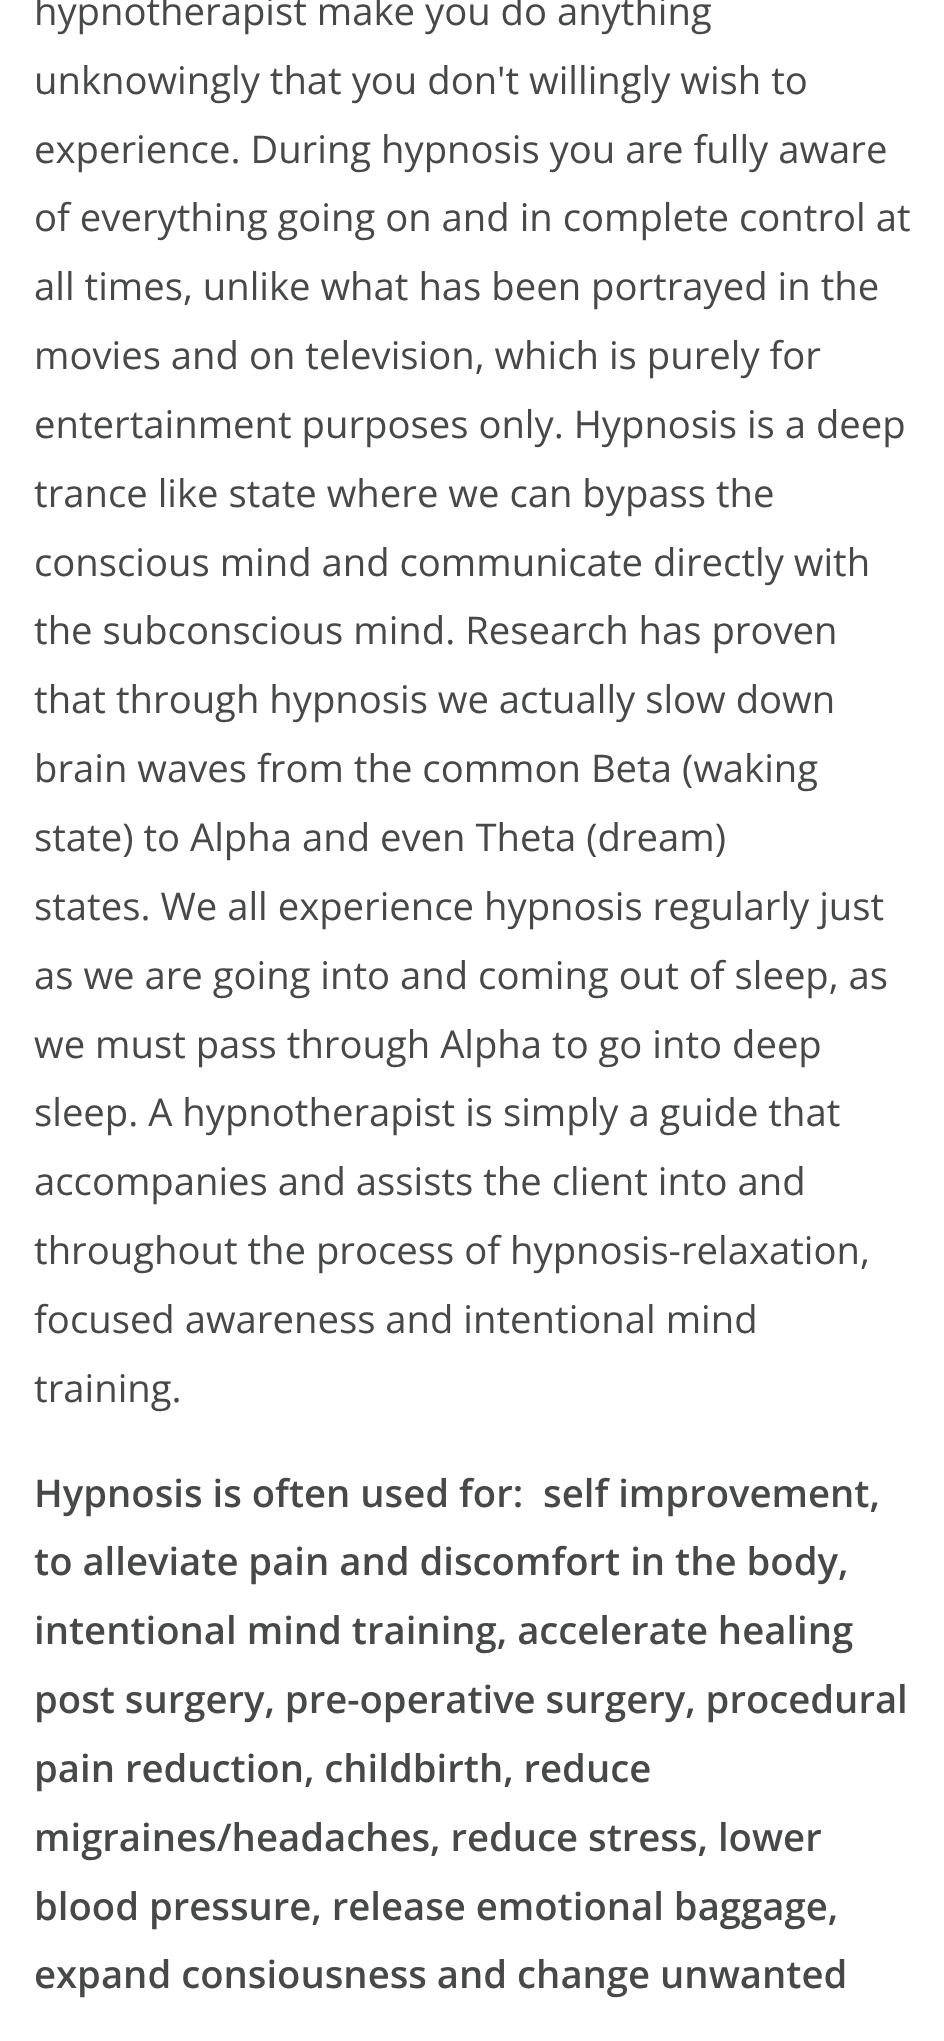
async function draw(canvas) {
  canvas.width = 944;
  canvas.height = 2041;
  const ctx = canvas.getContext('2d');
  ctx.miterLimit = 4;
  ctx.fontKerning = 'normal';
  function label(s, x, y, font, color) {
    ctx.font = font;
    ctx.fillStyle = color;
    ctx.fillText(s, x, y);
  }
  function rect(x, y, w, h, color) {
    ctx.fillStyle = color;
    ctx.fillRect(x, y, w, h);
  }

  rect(0, 0, 944, 2041, '#fff');
  label('hypnotherapist make you do anything', 34, 25, '38.25px Open Sans', '#474848');
  label('unknowingly that you don\'t willingly wish to', 34, 94, '38.25px Open Sans', '#474848');
  label('experience. During hypnosis you are fully aware', 34, 163, '38.25px Open Sans', '#474848');
  label('of everything going on and in complete control at', 34, 231, '38.25px Open Sans', '#474848');
  label('all times, unlike what has been portrayed in the', 34, 300, '38.25px Open Sans', '#474848');
  label('movies and on television, which is purely for', 34, 369, '38.25px Open Sans', '#474848');
  label('entertainment purposes only. Hypnosis is a deep', 34, 438, '38.25px Open Sans', '#474848');
  label('trance like state where we can bypass the', 34, 507, '38.25px Open Sans', '#474848');
  label('conscious mind and communicate directly with', 34, 576, '38.25px Open Sans', '#474848');
  label('the subconscious mind. Research has proven', 34, 644, '38.25px Open Sans', '#474848');
  label('that through hypnosis we actually slow down', 34, 713, '38.25px Open Sans', '#474848');
  label('brain waves from the common Beta (waking', 34, 782, '38.25px Open Sans', '#474848');
  label('state) to Alpha and even Theta (dream)', 34, 851, '38.25px Open Sans', '#474848');
  label('states. We all experience hypnosis regularly just', 34, 920, '38.25px Open Sans', '#474848');
  label('as we are going into and coming out of sleep, as', 34, 989, '38.25px Open Sans', '#474848');
  label('we must pass through Alpha to go into deep', 34, 1058, '38.25px Open Sans', '#474848');
  label('sleep. A hypnotherapist is simply a guide that', 34, 1126, '38.25px Open Sans', '#474848');
  label('accompanies and assists the client into and', 34, 1195, '38.25px Open Sans', '#474848');
  label('throughout the process of hypnosis-relaxation,', 34, 1264, '38.25px Open Sans', '#474848');
  label('focused awareness and intentional mind', 34, 1333, '38.25px Open Sans', '#474848');
  label('training.', 34, 1402, '38.25px Open Sans', '#474848');
  label('Hypnosis is often used for:  self improvement,', 34, 1507, '600 38.25px Open Sans', '#474848');
  label('to alleviate pain and discomfort in the body,', 34, 1575, '600 38.25px Open Sans', '#474848');
  label('intentional mind training, accelerate healing', 34, 1644, '600 38.25px Open Sans', '#474848');
  label('post surgery, pre-operative surgery, procedural', 34, 1713, '600 38.25px Open Sans', '#474848');
  label('pain reduction, childbirth, reduce', 34, 1782, '600 38.25px Open Sans', '#474848');
  label('migraines/headaches, reduce stress, lower', 34, 1851, '600 38.25px Open Sans', '#474848');
  label('blood pressure, release emotional baggage,', 34, 1920, '600 38.25px Open Sans', '#474848');
  label('expand consiousness and change unwanted', 34, 1988, '600 38.25px Open Sans', '#474848');
}

draw(document.querySelector('canvas'));
